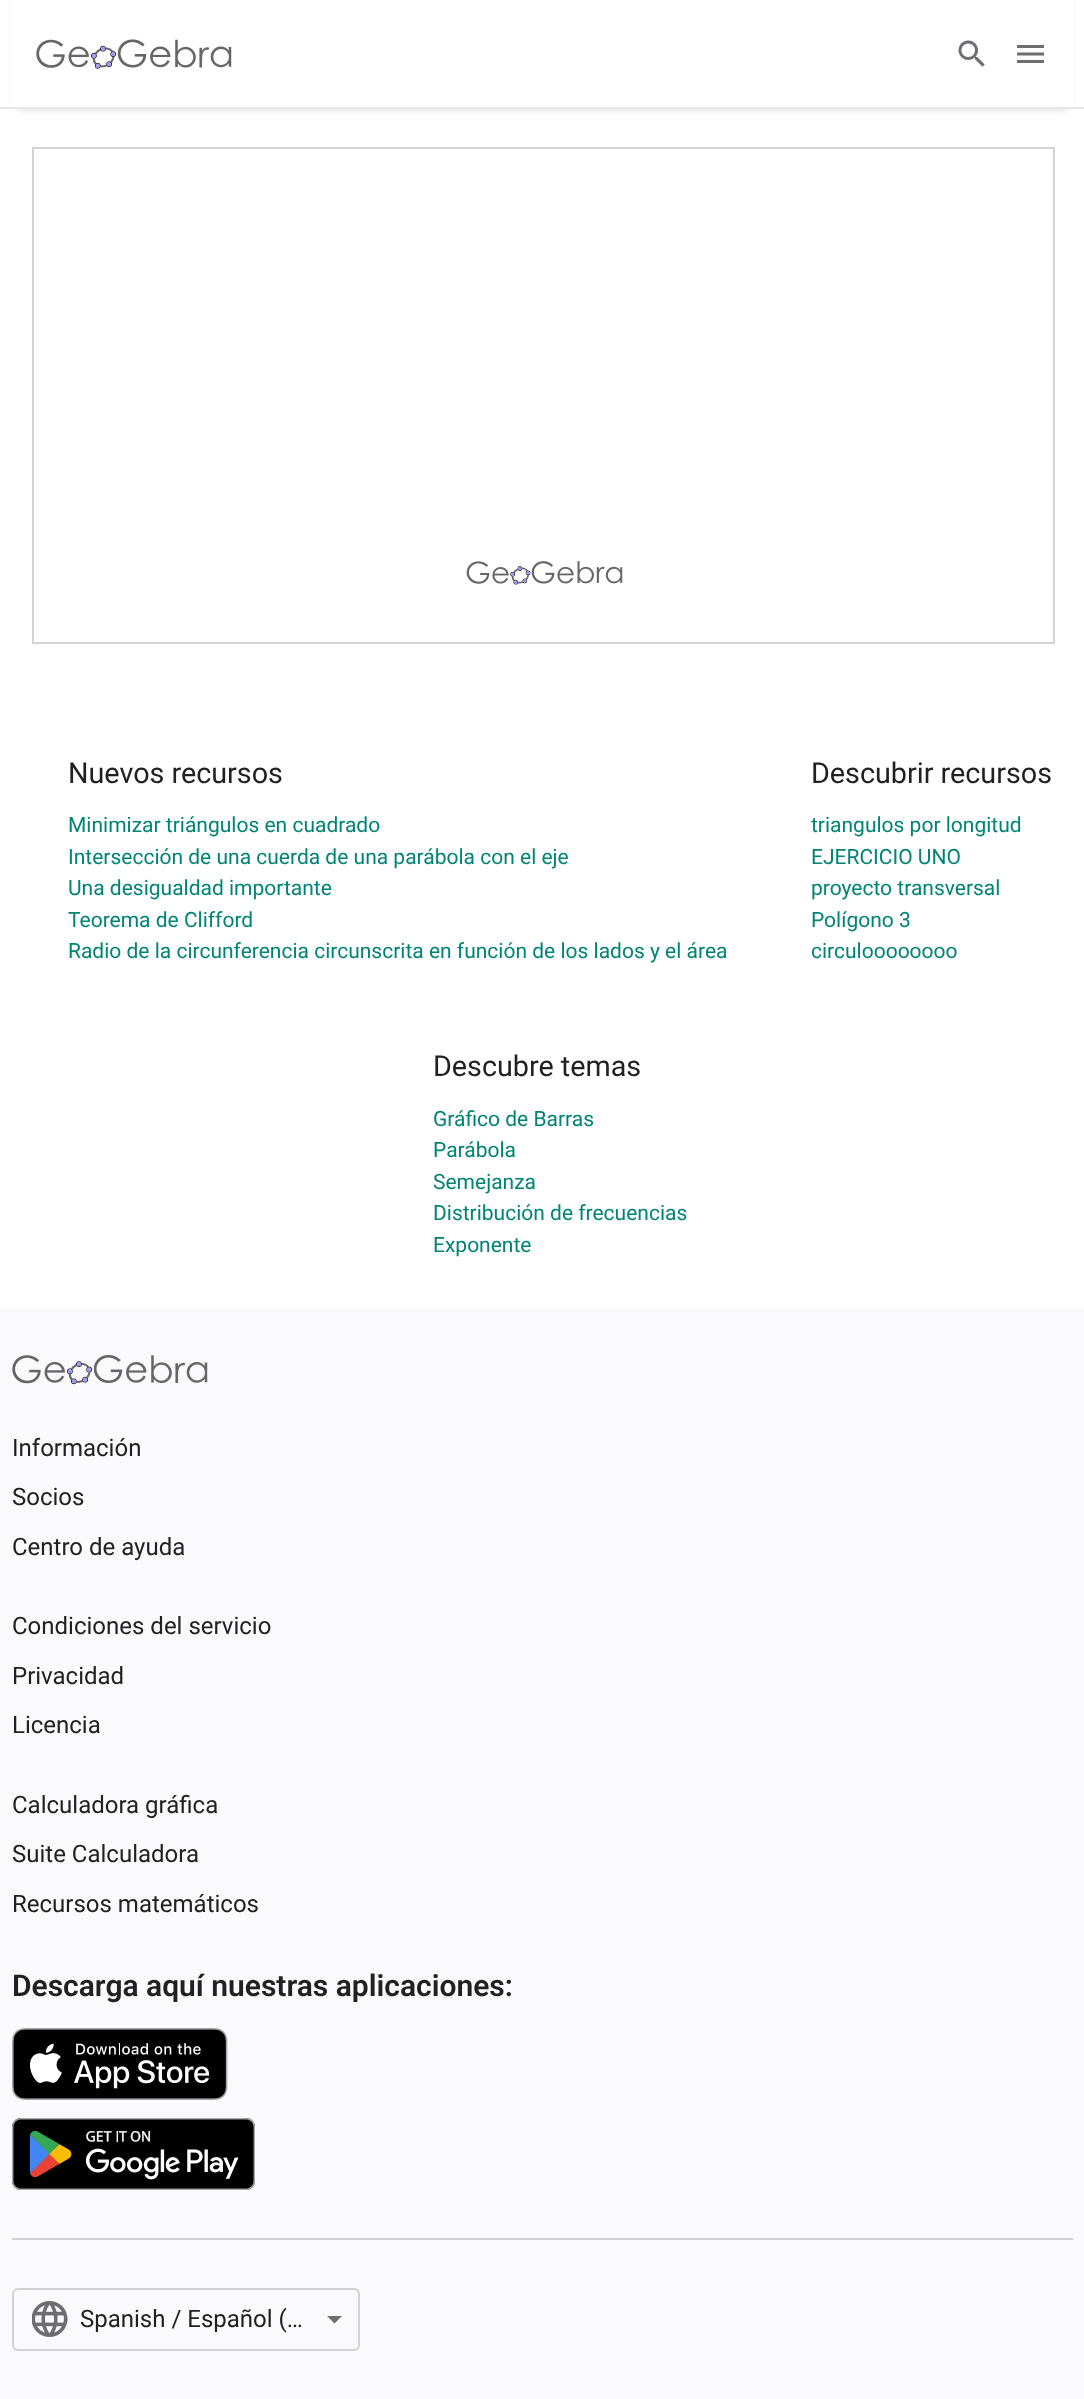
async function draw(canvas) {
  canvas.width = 1084;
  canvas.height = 2399;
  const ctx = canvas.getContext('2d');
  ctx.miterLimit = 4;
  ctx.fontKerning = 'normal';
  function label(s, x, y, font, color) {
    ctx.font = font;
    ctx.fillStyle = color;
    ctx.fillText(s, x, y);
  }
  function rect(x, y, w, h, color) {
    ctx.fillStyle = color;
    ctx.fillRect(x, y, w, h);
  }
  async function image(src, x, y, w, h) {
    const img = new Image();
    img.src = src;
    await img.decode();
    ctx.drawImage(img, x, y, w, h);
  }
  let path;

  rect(0, 0, 1084, 2399, '#fff');
  ctx.fillStyle = '#1c1c1f24';
  ctx.filter = 'blur(3px)';
  ctx.beginPath();
  ctx.roundRect(15, -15, 1055, 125, 6);
  ctx.fill();
  ctx.filter = 'none';
  rect(11, 0, 1063, 107, '#fff');
  rect(0, 107, 1084, 2, '#e6e6eb');
  await image('assets/img1.png', 36, 39, 196, 30);
  await image('assets/img2.png', 958, 40, 27, 27);
  await image('assets/img3.png', 1017, 45, 27, 18);
  await image('assets/img4.png', 466, 561, 157, 24);
  ctx.strokeStyle = '#d3d3d3';
  ctx.lineWidth = 2;
  ctx.strokeRect(33, 148, 1021, 495);
  label('Nuevos recursos', 68, 783, '28.75px Roboto', '#212121');
  label('Minimizar triángulos en cuadrado', 68, 832, '21px Roboto', '#008475');
  label('Intersección de una cuerda de una parábola con el eje', 68, 864, '21px Roboto', '#008475');
  label('Una desigualdad importante', 68, 895, '21px Roboto', '#008475');
  label('Teorema de Clifford', 68, 927, '21px Roboto', '#008475');
  label('Radio de la circunferencia circunscrita en función de los lados y el área', 68, 958, '21px Roboto', '#008475');
  label('Descubrir recursos', 811, 783, '28.75px Roboto', '#212121');
  label('triangulos por longitud', 811, 832, '21px Roboto', '#008475');
  label('EJERCICIO UNO', 811, 864, '21px Roboto', '#008475');
  label('proyecto transversal', 811, 895, '21px Roboto', '#008475');
  label('Polígono 3', 811, 927, '21px Roboto', '#008475');
  label('circuloooooooo', 811, 958, '21px Roboto', '#008475');
  label('Descubre temas', 433, 1076, '28.75px Roboto', '#212121');
  label('Gráfico de Barras', 433, 1126, '21px Roboto', '#008475');
  label('Parábola', 433, 1157, '21px Roboto', '#008475');
  label('Semejanza', 433, 1189, '21px Roboto', '#008475');
  label('Distribución de frecuencias', 433, 1220, '21px Roboto', '#008475');
  label('Exponente', 433, 1252, '21px Roboto', '#008475');
  rect(0, 1307, 1084, 1092, '#fafafc');
  await image('assets/img5.png', 12, 1355, 196, 30);
  label('Información', 12, 1456, '24px Roboto', '#212121');
  label('Socios', 12, 1505, '24px Roboto', '#212121');
  label('Centro de ayuda', 12, 1555, '24px Roboto', '#212121');
  label('Condiciones del servicio', 12, 1634, '24px Roboto', '#212121');
  label('Privacidad', 12, 1684, '24px Roboto', '#212121');
  label('Licencia', 12, 1733, '24px Roboto', '#212121');
  label('Calculadora gráfica', 12, 1813, '24px Roboto', '#212121');
  label('Suite Calculadora', 12, 1862, '24px Roboto', '#212121');
  label('Recursos matemáticos', 12, 1912, '24px Roboto', '#212121');
  label('Descarga aquí nuestras aplicaciones:', 12, 1996, '600 30px Roboto', '#212121');
  await image('assets/img6.png', 12, 2028, 216, 72);
  await image('assets/img7.png', 12, 2118, 243, 72);
  rect(12, 2238, 1061, 2, '#d1d0d6');
  ctx.beginPath();
  ctx.roundRect(13, 2289, 346, 61, 5);
  ctx.strokeStyle = '#d1d0d6';
  ctx.stroke();
  await image('assets/img8.png', 32, 2301, 36, 36);
  label('Spanish / Español (…', 80, 2327, '24px Roboto', '#212121');
  ctx.fillStyle = '#6e6d73';
  path = new Path2D('M327 2316L334.5 2323.5L342 2316Z');
  ctx.fill(path);
}

draw(document.querySelector('canvas'));
